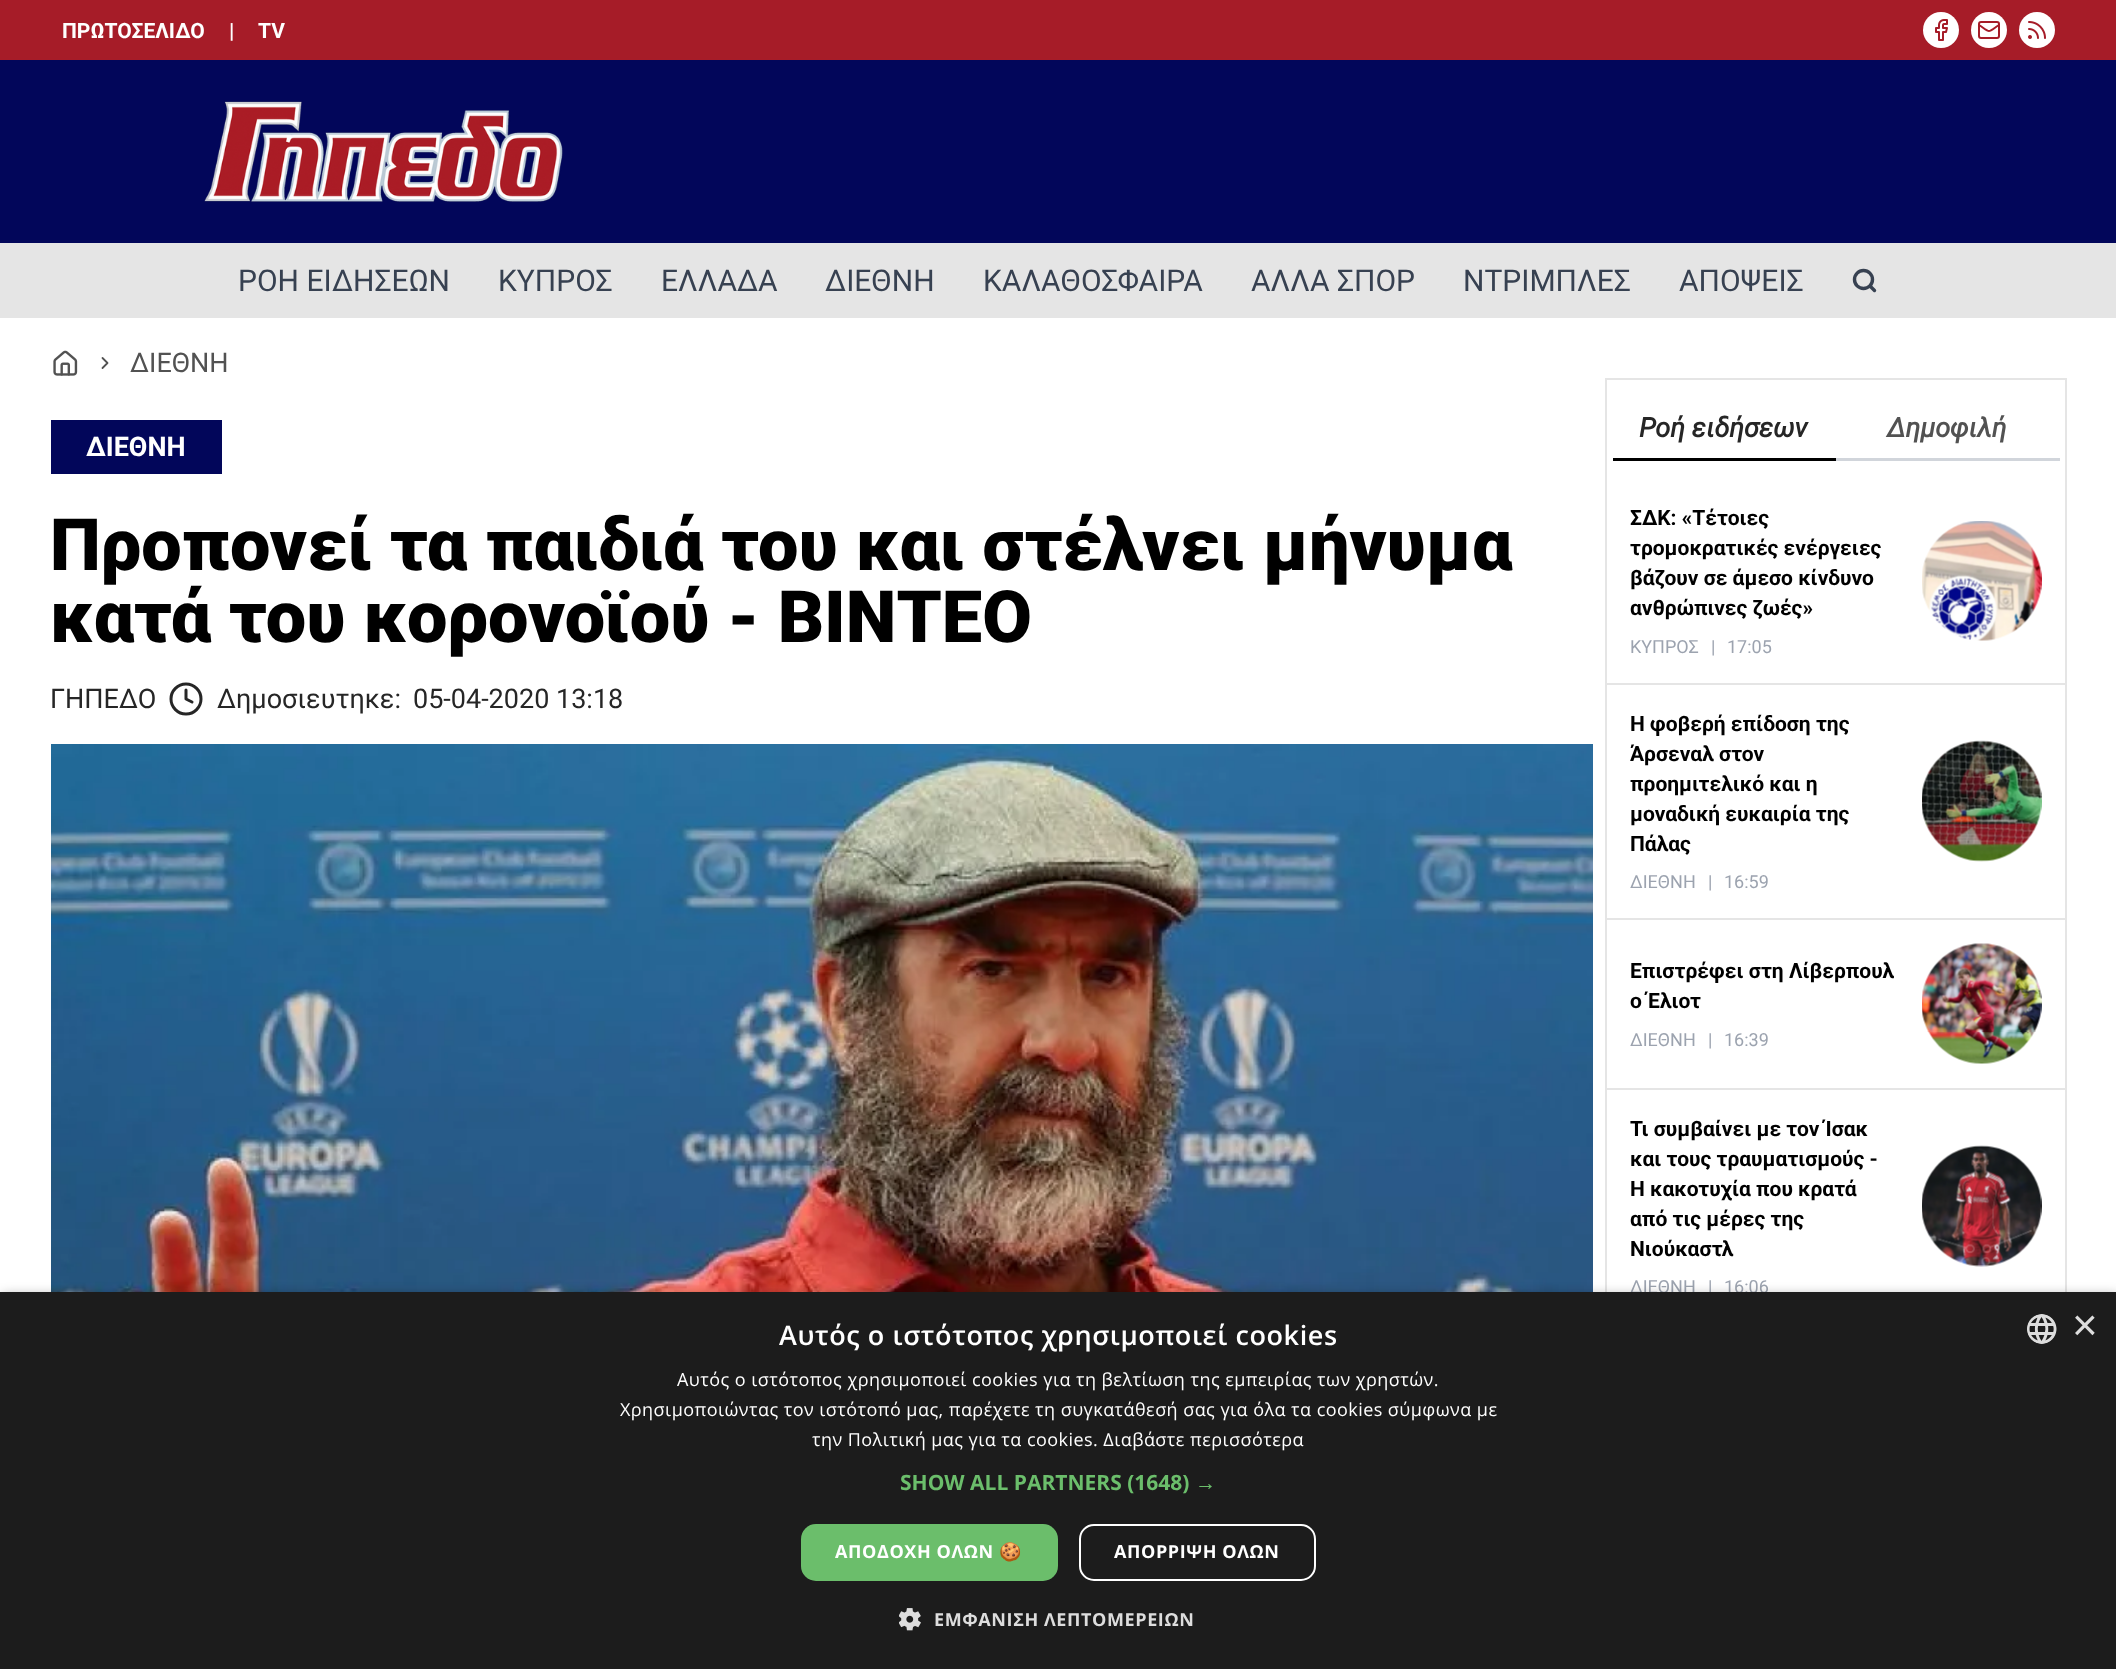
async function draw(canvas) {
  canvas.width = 2116;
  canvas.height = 1669;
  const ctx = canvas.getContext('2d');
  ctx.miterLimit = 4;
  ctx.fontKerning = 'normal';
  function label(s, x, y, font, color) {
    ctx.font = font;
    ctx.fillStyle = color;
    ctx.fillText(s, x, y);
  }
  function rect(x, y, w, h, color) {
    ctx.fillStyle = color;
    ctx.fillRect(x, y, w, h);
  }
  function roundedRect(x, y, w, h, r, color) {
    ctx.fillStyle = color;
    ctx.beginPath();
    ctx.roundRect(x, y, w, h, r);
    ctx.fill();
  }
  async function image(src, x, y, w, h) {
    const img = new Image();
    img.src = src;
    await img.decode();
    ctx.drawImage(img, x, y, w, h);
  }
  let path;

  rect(0, 0, 2116, 1669, '#fff');
  rect(0, 0, 2116, 60, '#a61c28');
  label('ΠΡΩΤΟΣΕΛΙΔΟ', 62, 38, 'bold 21px Roboto', '#fff');
  label('|', 229, 38, 'bold 21px Roboto', '#fff');
  label('TV', 258, 38, 'bold 21px Roboto', '#fff');
  ctx.beginPath();
  ctx.arc(1941, 30, 18, 0, 2 * Math.PI);
  ctx.fill();
  await image('assets/img1.png', 1935, 19, 13, 22);
  ctx.beginPath();
  ctx.arc(1989, 30, 18, 0, 2 * Math.PI);
  ctx.fill();
  ctx.beginPath();
  ctx.roundRect(1979, 22, 20, 16, 2);
  ctx.strokeStyle = '#a61c28';
  ctx.lineWidth = 2;
  ctx.stroke();
  path = new Path2D('M1999 25C1987 33 1991 33 1979 25');
  ctx.lineCap = 'round';
  ctx.lineJoin = 'round';
  ctx.stroke(path);
  ctx.beginPath();
  ctx.arc(2037, 30, 18, 0, 2 * Math.PI);
  ctx.fill();
  await image('assets/img2.png', 2028, 21, 18, 18);
  rect(0, 60, 2116, 183, '#02065a');
  await image('assets/img3.png', 204, 101, 359, 101);
  rect(0, 243, 2116, 75, '#e5e5e5');
  label('ΡΟΗ ΕΙΔΗΣΕΩΝ', 238, 291, '30px Roboto', '#374151');
  label('ΚΥΠΡΟΣ', 498, 291, '30px Roboto', '#374151');
  label('ΕΛΛΑΔΑ', 661, 291, '30px Roboto', '#374151');
  label('ΔΙΕΘΝΗ', 825, 291, '30px Roboto', '#374151');
  label('ΚΑΛΑΘΟΣΦΑΙΡΑ', 983, 291, '30px Roboto', '#374151');
  label('ΑΛΛΑ ΣΠΟΡ', 1251, 291, '30px Roboto', '#374151');
  label('ΝΤΡΙΜΠΛΕΣ', 1463, 291, '30px Roboto', '#374151');
  label('ΑΠΟΨΕΙΣ', 1679, 291, '30px Roboto', '#374151');
  ctx.beginPath();
  ctx.arc(1863.5, 279.5, 9, 0, 2 * Math.PI);
  ctx.strokeStyle = '#374151';
  ctx.lineWidth = 3.4;
  ctx.stroke();
  path = new Path2D('M1874.5 290.5L1870 286');
  ctx.stroke(path);
  await image('assets/img4.png', 53, 350, 25, 26);
  path = new Path2D('M102.5 368L107.5 363L102.5 358');
  ctx.strokeStyle = '#525252';
  ctx.lineWidth = 1.8;
  ctx.stroke(path);
  label('ΔΙΕΘΝΗ', 130, 372, '27px Roboto', '#525252');
  rect(51, 420, 171, 54, '#02065a');
  label('ΔΙΕΘΝΗ', 86, 456, 'bold 27px Roboto', '#fff');
  label('Προπονεί τα παιδιά του και στέλνει μήνυμα', 50, 570, '900 72px Roboto', '#000');
  label('κατά του κορονοϊού - ΒΙΝΤΕΟ', 50, 642, '900 72px Roboto', '#000');
  label('ΓΗΠΕΔΟ', 50, 708, '27px Roboto', '#262626');
  ctx.beginPath();
  ctx.arc(186, 699, 15, 0, 2 * Math.PI);
  ctx.strokeStyle = '#262626';
  ctx.lineWidth = 3;
  ctx.stroke();
  path = new Path2D('M186 690V699L192 702');
  ctx.stroke(path);
  label('Δημοσιευτηκε:', 217, 708, '27px Roboto', '#262626');
  label('05-04-2020 13:18', 413, 708, '27px Roboto', '#262626');
  await image('assets/img5.png', 51, 744, 1542, 548);
  ctx.strokeStyle = '#e5e5e5';
  ctx.lineWidth = 2;
  ctx.lineJoin = 'miter';
  ctx.strokeRect(1606, 379, 460, 952);
  rect(1613, 458, 223, 3, '#000');
  label('Ροή ειδήσεων', 1639, 437, 'italic bold 27px Roboto', '#262626');
  rect(1836, 458, 224, 3, '#d1d5db');
  label('Δημοφιλή', 1887, 437, 'italic bold 27px Roboto', '#525252');
  label('ΣΔΚ: «Τέτοιες', 1630, 525, 'bold 21px Roboto', '#000');
  label('τρομοκρατικές ενέργειες', 1630, 555, 'bold 21px Roboto', '#000');
  label('βάζουν σε άμεσο κίνδυνο', 1630, 585, 'bold 21px Roboto', '#000');
  label('ανθρώπινες ζωές»', 1630, 615, 'bold 21px Roboto', '#000');
  label('ΚΥΠΡΟΣ', 1630, 653, '18px Roboto', '#9ca3af');
  label('|', 1711, 653, '18px Roboto', '#9ca3af');
  label('17:05', 1727, 653, '18px Roboto', '#9ca3af');
  await image('assets/img6.png', 1922, 521, 120, 120);
  rect(1607, 683, 459, 2, '#e5e5e5');
  label('Η φοβερή επίδοση της', 1630, 731, 'bold 21px Roboto', '#000');
  label('Άρσεναλ στον', 1630, 761, 'bold 21px Roboto', '#000');
  label('προημιτελικό και η', 1630, 791, 'bold 21px Roboto', '#000');
  label('μοναδική ευκαιρία της', 1630, 821, 'bold 21px Roboto', '#000');
  label('Πάλας', 1630, 851, 'bold 21px Roboto', '#000');
  label('ΔΙΕΘΝΗ', 1630, 888, '18px Roboto', '#9ca3af');
  label('|', 1708, 888, '18px Roboto', '#9ca3af');
  label('16:59', 1724, 888, '18px Roboto', '#9ca3af');
  await image('assets/img7.png', 1922, 740, 120, 122);
  rect(1607, 918, 459, 2, '#e5e5e5');
  label('Επιστρέφει στη Λίβερπουλ', 1630, 978, 'bold 21px Roboto', '#000');
  label('ο Έλιοτ', 1630, 1008, 'bold 21px Roboto', '#000');
  label('ΔΙΕΘΝΗ', 1630, 1046, '18px Roboto', '#9ca3af');
  label('|', 1708, 1046, '18px Roboto', '#9ca3af');
  label('16:39', 1724, 1046, '18px Roboto', '#9ca3af');
  await image('assets/img8.png', 1922, 943, 120, 121);
  rect(1607, 1088, 459, 2, '#e5e5e5');
  label('Τι συμβαίνει με τον Ίσακ', 1630, 1136, 'bold 21px Roboto', '#000');
  label('και τους τραυματισμούς -', 1630, 1166, 'bold 21px Roboto', '#000');
  label('Η κακοτυχία που κρατά', 1630, 1196, 'bold 21px Roboto', '#000');
  label('από τις μέρες της', 1630, 1226, 'bold 21px Roboto', '#000');
  label('Νιούκαστλ', 1630, 1256, 'bold 21px Roboto', '#000');
  label('ΔΙΕΘΝΗ', 1630, 1293, '18px Roboto', '#9ca3af');
  label('|', 1708, 1293, '18px Roboto', '#9ca3af');
  label('16:06', 1724, 1293, '18px Roboto', '#9ca3af');
  await image('assets/img9.png', 1922, 1145, 120, 122);
  ctx.fillStyle = '#00000059';
  ctx.filter = 'blur(6px)';
  ctx.beginPath();
  ctx.rect(2, 1295, 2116, 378);
  ctx.fill();
  ctx.filter = 'none';
  rect(0, 1292, 2116, 377, '#1c1c1c');
  ctx.letterSpacing = '0.6px';
  label('Αυτός ο ιστότοπος χρησιμοποιεί cookies', 779, 1345, '600 27px Open Sans', '#fff');
  await image('assets/img10.png', 2027, 1314, 30, 30);
  ctx.letterSpacing = '0px';
  label('×', 2072, 1340, '44px Liberation Sans', '#ddd');
  ctx.letterSpacing = '0.45px';
  label('Αυτός ο ιστότοπος χρησιμοποιεί cookies για τη βελτίωση της εμπειρίας των χρηστών.', 677, 1386, '18px Open Sans', '#fff');
  label('Χρησιμοποιώντας τον ιστότοπό μας, παρέχετε τη συγκατάθεσή σας για όλα τα cookies σύμφωνα με', 620, 1416, '18px Open Sans', '#fff');
  label('την Πολιτική μας για τα cookies. Διαβάστε περισσότερα', 812, 1446, '18px Open Sans', '#fff');
  ctx.letterSpacing = '0px';
  label('SHOW ALL PARTNERS (1648)', 900, 1490, 'bold 21px Open Sans', '#6bbe6b');
  label('→', 1195, 1490, 'bold 21px Liberation Sans', '#6bbe6b');
  roundedRect(801, 1524, 257, 57, 15, '#6bbe6b');
  ctx.letterSpacing = '0.6px';
  label('ΑΠΟΔΟΧΗ ΟΛΩΝ', 835, 1558, 'bold 18px Open Sans', '#fff');
  label('🍪', 999, 1558, 'bold 18px Noto Color Emoji', '#fff');
  ctx.beginPath();
  ctx.roundRect(1080, 1525, 235, 55, 14);
  ctx.strokeStyle = '#fff';
  ctx.stroke();
  label('ΑΠΟΡΡΙΨΗ ΟΛΩΝ', 1114, 1558, 'bold 18px Open Sans', '#fff');
  await image('assets/img11.png', 899, 1608, 22, 23);
  label('ΕΜΦΑΝΙΣΗ ΛΕΠΤΟΜΕΡΕΙΩΝ', 934, 1626, 'bold 18px Open Sans', '#ddd');
}

draw(document.querySelector('canvas'));
